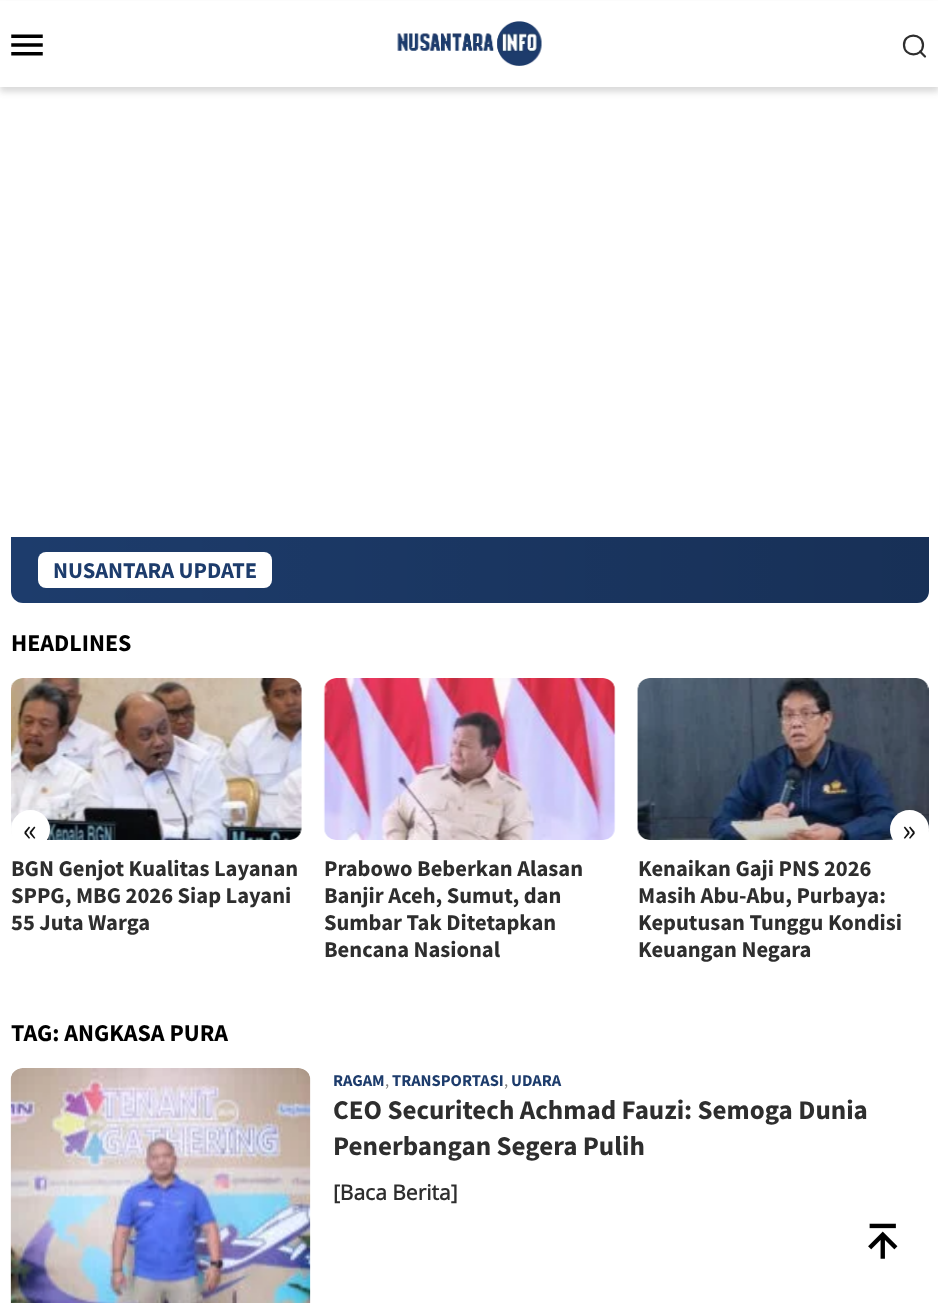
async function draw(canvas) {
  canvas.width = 938;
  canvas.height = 1303;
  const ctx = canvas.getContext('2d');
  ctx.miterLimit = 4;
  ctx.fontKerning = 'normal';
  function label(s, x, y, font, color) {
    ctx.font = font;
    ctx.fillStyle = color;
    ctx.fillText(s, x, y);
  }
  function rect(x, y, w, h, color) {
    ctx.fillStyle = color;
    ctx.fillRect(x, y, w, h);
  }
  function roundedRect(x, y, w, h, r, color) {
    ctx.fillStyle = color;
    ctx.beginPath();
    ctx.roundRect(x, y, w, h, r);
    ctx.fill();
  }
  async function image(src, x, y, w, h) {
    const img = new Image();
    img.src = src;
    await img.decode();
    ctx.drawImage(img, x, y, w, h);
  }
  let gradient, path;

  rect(0, 0, 938, 1303, '#fff');
  ctx.fillStyle = '#3434342e';
  ctx.filter = 'blur(3px)';
  ctx.beginPath();
  ctx.rect(0, 5, 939, 87);
  ctx.fill();
  ctx.filter = 'none';
  rect(0, 1, 938, 86, '#fff');
  await image('assets/img1.png', 11, 34, 32, 22);
  await image('assets/img2.png', 397, 21, 145, 45);
  path = new Path2D('M925 56.5L920 51.5M923 45C923 57.5 904 57.5 904 45C903.5 32.5 923 32.5 923 45Z');
  ctx.strokeStyle = '#2e2e2e';
  ctx.lineWidth = 2.2;
  ctx.lineCap = 'round';
  ctx.stroke(path);
  ctx.fillStyle = '#1d3c6c';
  ctx.beginPath();
  ctx.roundRect(11, 537, 918, 66, [0, 0, 12, 12]);
  ctx.fill();
  gradient = ctx.createLinearGradient(11, 570, 929, 570);
  gradient.addColorStop(0, '#00000000');
  gradient.addColorStop(1, '#00000033');
  ctx.fillStyle = gradient;
  ctx.beginPath();
  ctx.roundRect(11, 537, 918, 66, [0, 0, 12, 12]);
  ctx.fill();
  roundedRect(38, 552, 234, 36, 8, '#fff');
  label('NUSANTARA UPDATE', 53, 578, 'bold 22.5px Source Sans Pro', '#1d3c6c');
  label('HEADLINES', 11, 651, 'bold 24px Source Sans Pro', '#000');
  await image('assets/img3.png', 11, 678, 291, 162);
  ctx.fillStyle = '#fff';
  ctx.beginPath();
  ctx.arc(30.5, 829.5, 19.5, 0, 2 * Math.PI);
  ctx.fill();
  label('«', 23, 841, '33px Source Sans Pro', '#111');
  await image('assets/img5.png', 637, 678, 292, 162);
  ctx.fillStyle = '#fff';
  ctx.beginPath();
  ctx.arc(909.5, 829.5, 19.5, 0, 2 * Math.PI);
  ctx.fill();
  label('»', 902, 841, '33px Source Sans Pro', '#111');
  label('BGN Genjot Kualitas Layanan', 11, 876, 'bold 22.5px Source Sans Pro', '#2e2e2e');
  label('SPPG, MBG 2026 Siap Layani', 11, 903, 'bold 22.5px Source Sans Pro', '#2e2e2e');
  label('55 Juta Warga', 11, 930, 'bold 22.5px Source Sans Pro', '#2e2e2e');
  await image('assets/img4.png', 323, 678, 293, 162);
  label('Prabowo Beberkan Alasan', 324, 876, 'bold 22.5px Source Sans Pro', '#2e2e2e');
  label('Banjir Aceh, Sumut, dan', 324, 903, 'bold 22.5px Source Sans Pro', '#2e2e2e');
  label('Sumbar Tak Ditetapkan', 324, 930, 'bold 22.5px Source Sans Pro', '#2e2e2e');
  label('Bencana Nasional', 324, 957, 'bold 22.5px Source Sans Pro', '#2e2e2e');
  label('Kenaikan Gaji PNS 2026', 638, 876, 'bold 22.5px Source Sans Pro', '#2e2e2e');
  label('Masih Abu-Abu, Purbaya:', 638, 903, 'bold 22.5px Source Sans Pro', '#2e2e2e');
  label('Keputusan Tunggu Kondisi', 638, 930, 'bold 22.5px Source Sans Pro', '#2e2e2e');
  label('Keuangan Negara', 638, 957, 'bold 22.5px Source Sans Pro', '#2e2e2e');
  label('TAG: ANGKASA PURA', 11, 1041, 'bold 24px Source Sans Pro', '#000');
  await image('assets/img6.png', 10, 1068, 301, 235);
  label('RAGAM', 333, 1086, 'bold 16.5px Source Sans Pro', '#1d3c6c');
  label(',', 385, 1086, '16.5px Source Sans Pro', '#787878');
  label('TRANSPORTASI', 392, 1086, 'bold 16.5px Source Sans Pro', '#1d3c6c');
  label(',', 504, 1086, '16.5px Source Sans Pro', '#787878');
  label('UDARA', 511, 1086, 'bold 16.5px Source Sans Pro', '#1d3c6c');
  label('CEO Securitech Achmad Fauzi: Semoga Dunia', 333, 1119, 'bold 27px Source Sans Pro', '#2e2e2e');
  label('Penerbangan Segera Pulih', 333, 1155, 'bold 27px Source Sans Pro', '#2e2e2e');
  label('[Baca Berita]', 333, 1200, 'bold 21px Open Sans', '#2e2e2e');
  await image('assets/img7.png', 868, 1223, 30, 36);
}

draw(document.querySelector('canvas'));
